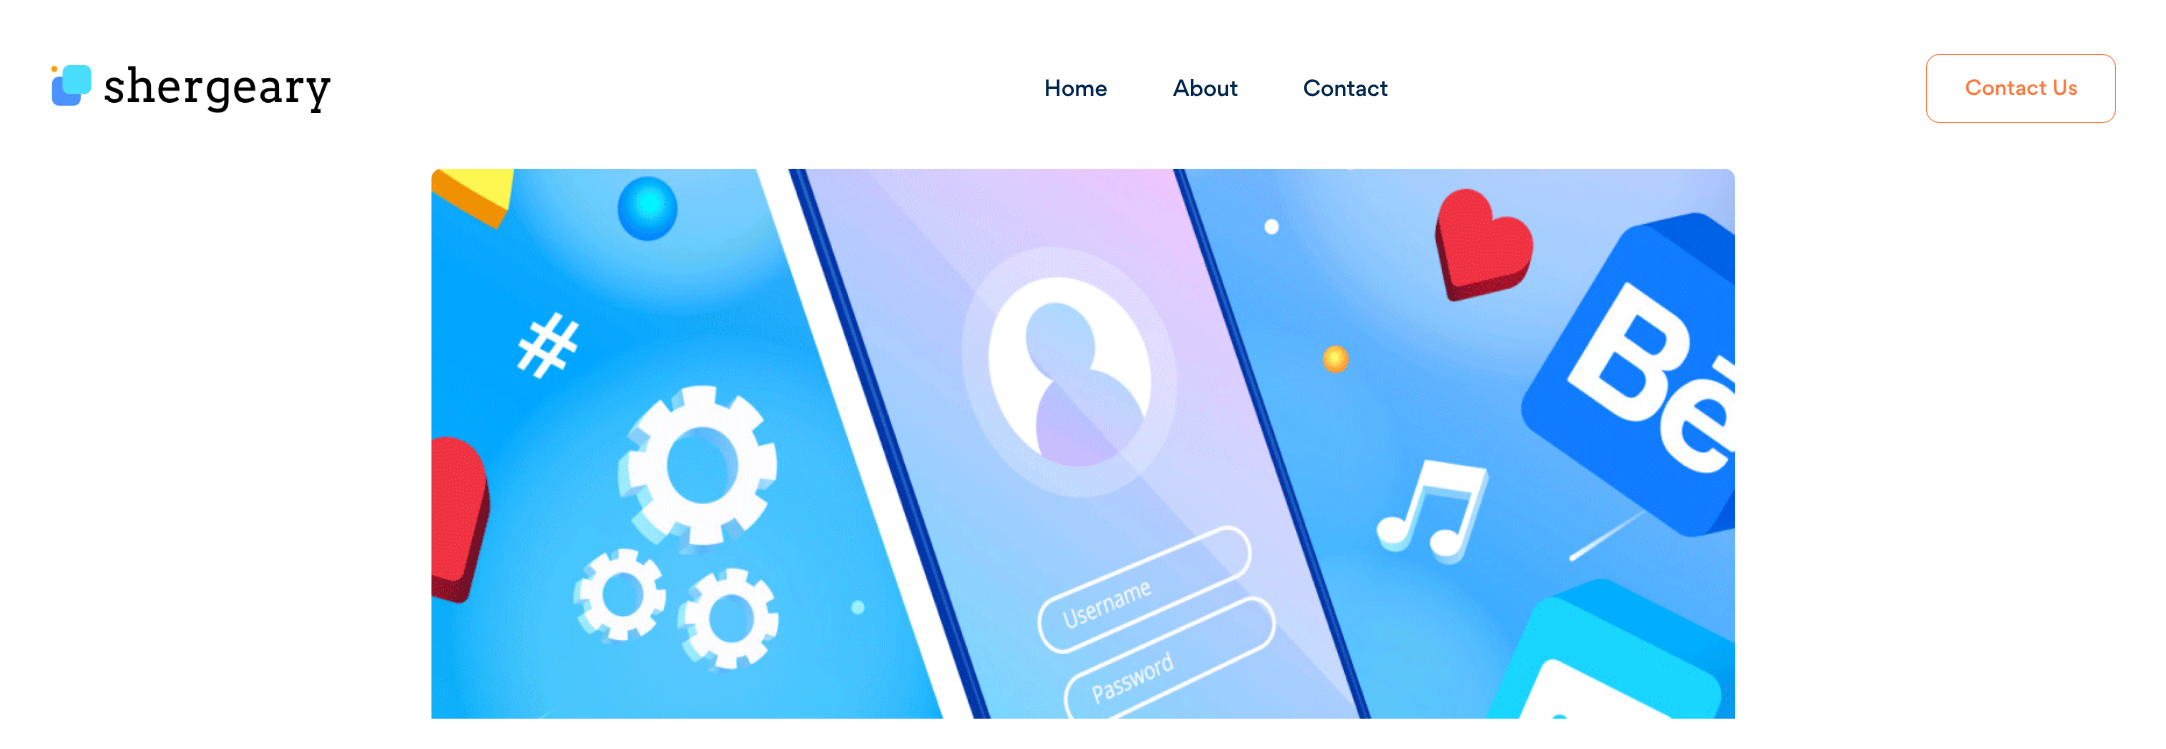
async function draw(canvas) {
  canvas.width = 2166;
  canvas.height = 749;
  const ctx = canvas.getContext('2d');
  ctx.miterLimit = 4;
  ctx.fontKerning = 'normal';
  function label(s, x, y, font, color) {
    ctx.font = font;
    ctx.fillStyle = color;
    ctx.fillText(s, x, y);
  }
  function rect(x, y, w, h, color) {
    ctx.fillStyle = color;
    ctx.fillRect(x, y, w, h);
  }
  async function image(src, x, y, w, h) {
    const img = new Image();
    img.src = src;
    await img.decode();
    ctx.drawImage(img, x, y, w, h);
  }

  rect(0, 0, 2166, 749, '#fff');
  await image('assets/img1.png', 50, 65, 281, 48);
  ctx.letterSpacing = '-0.25px';
  label('Home', 1044, 96, '500 22.5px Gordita', '#00284e');
  label('About', 1173, 96, '500 22.5px Gordita', '#00284e');
  label('Contact', 1303, 96, '500 22.5px Gordita', '#00284e');
  ctx.beginPath();
  ctx.roundRect(1926.5, 54.5, 189, 68, 12.5);
  ctx.strokeStyle = '#ff7a41';
  ctx.stroke();
  ctx.letterSpacing = '0px';
  label('Contact Us', 1965, 95, '500 21.25px Gordita', '#ff7a41');
  await image('assets/img2.png', 431, 168, 1304, 551);
}

draw(document.querySelector('canvas'));
